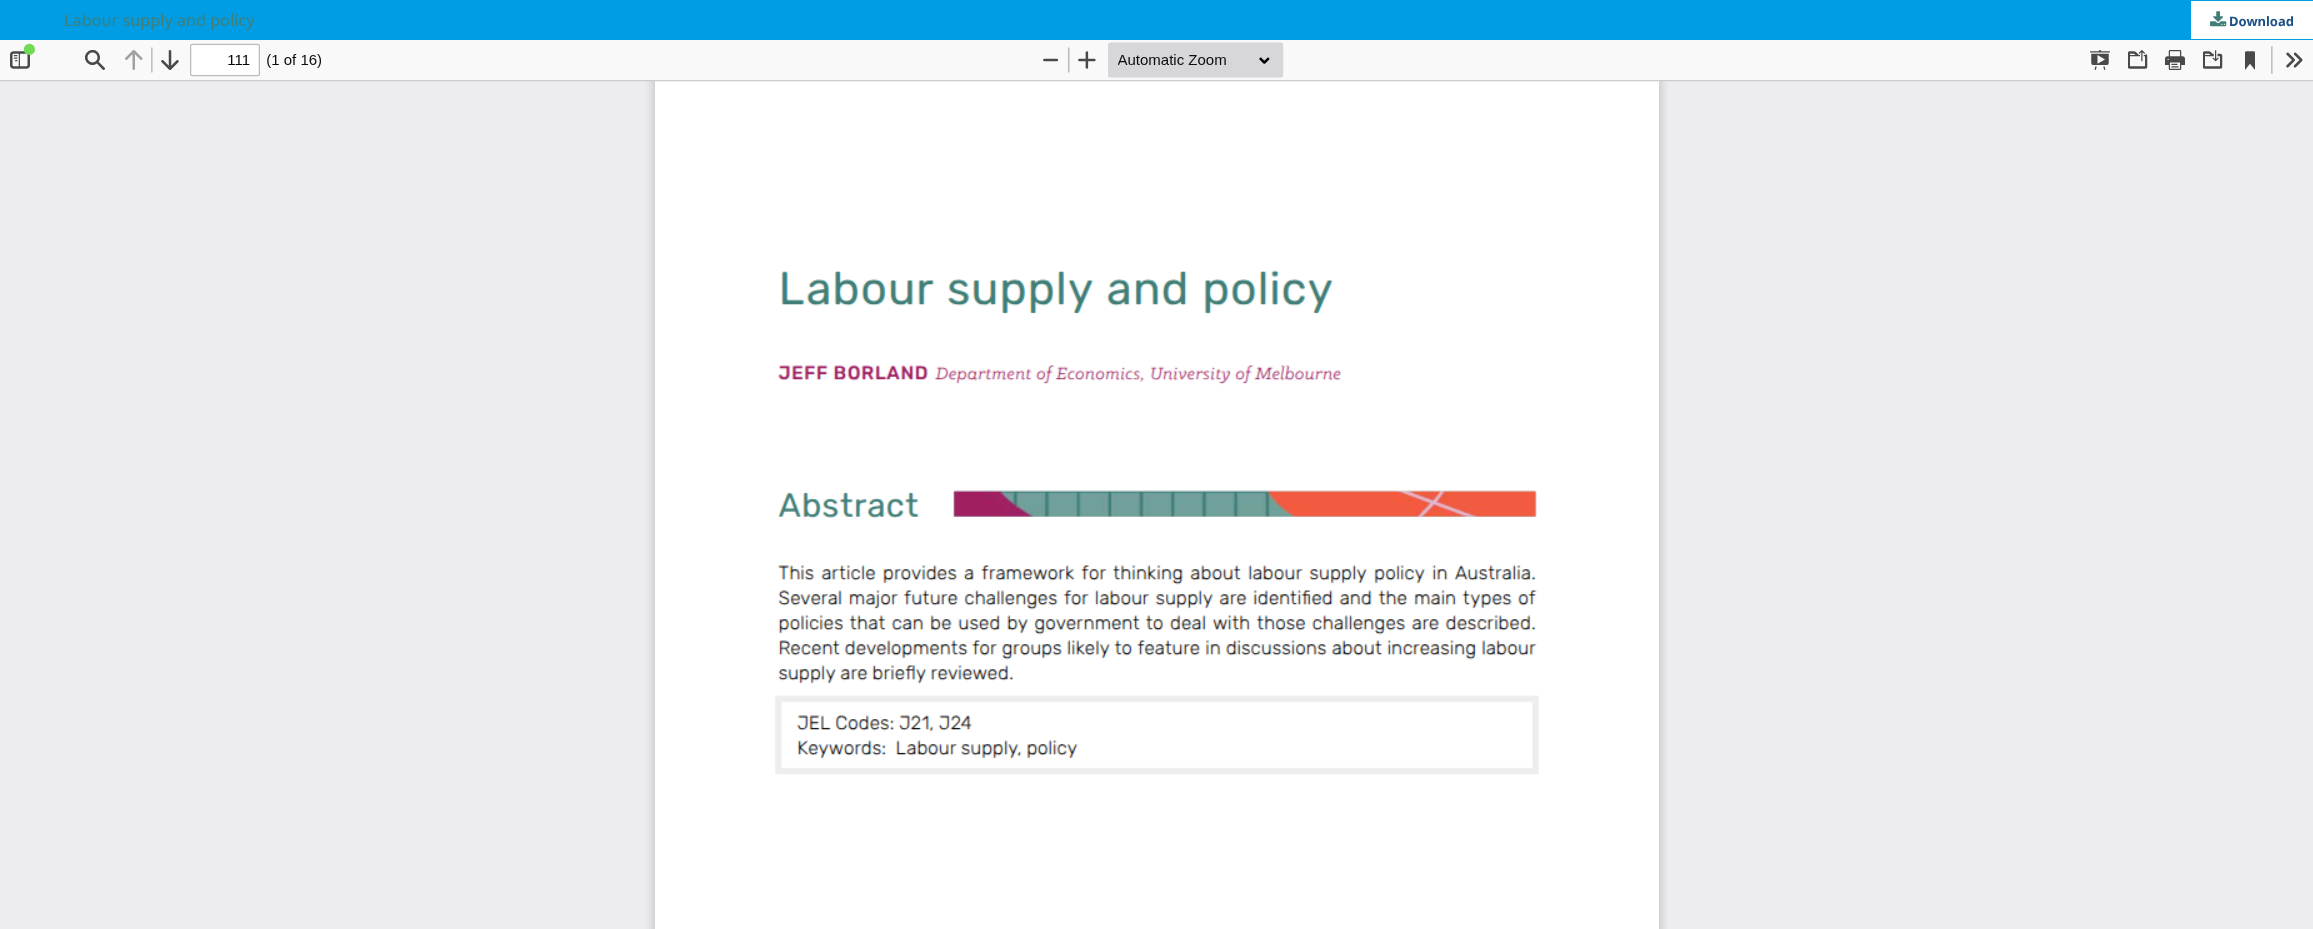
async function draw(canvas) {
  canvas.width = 2313;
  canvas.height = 929;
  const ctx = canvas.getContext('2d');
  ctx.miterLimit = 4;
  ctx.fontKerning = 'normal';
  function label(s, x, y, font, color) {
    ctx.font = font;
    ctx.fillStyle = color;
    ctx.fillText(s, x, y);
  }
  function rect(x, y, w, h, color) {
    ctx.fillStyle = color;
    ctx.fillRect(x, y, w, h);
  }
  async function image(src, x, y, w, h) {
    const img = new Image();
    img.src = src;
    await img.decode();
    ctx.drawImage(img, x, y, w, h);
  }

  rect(0, 0, 2313, 929, '#fff');
  rect(0, 0, 2313, 40, '#009de5');
  label('Labour supply and policy', 64, 26, '16.25px Noto Sans', '#417e77');
  rect(2191, 1, 122, 38, '#fff');
  await image('assets/img1.png', 2210, 11, 17, 16);
  label('Download', 2229, 26, 'bold 13px Noto Sans', '#1b5083');
  await image('assets/img2.png', 0, 40, 2313, 889);
}

draw(document.querySelector('canvas'));
